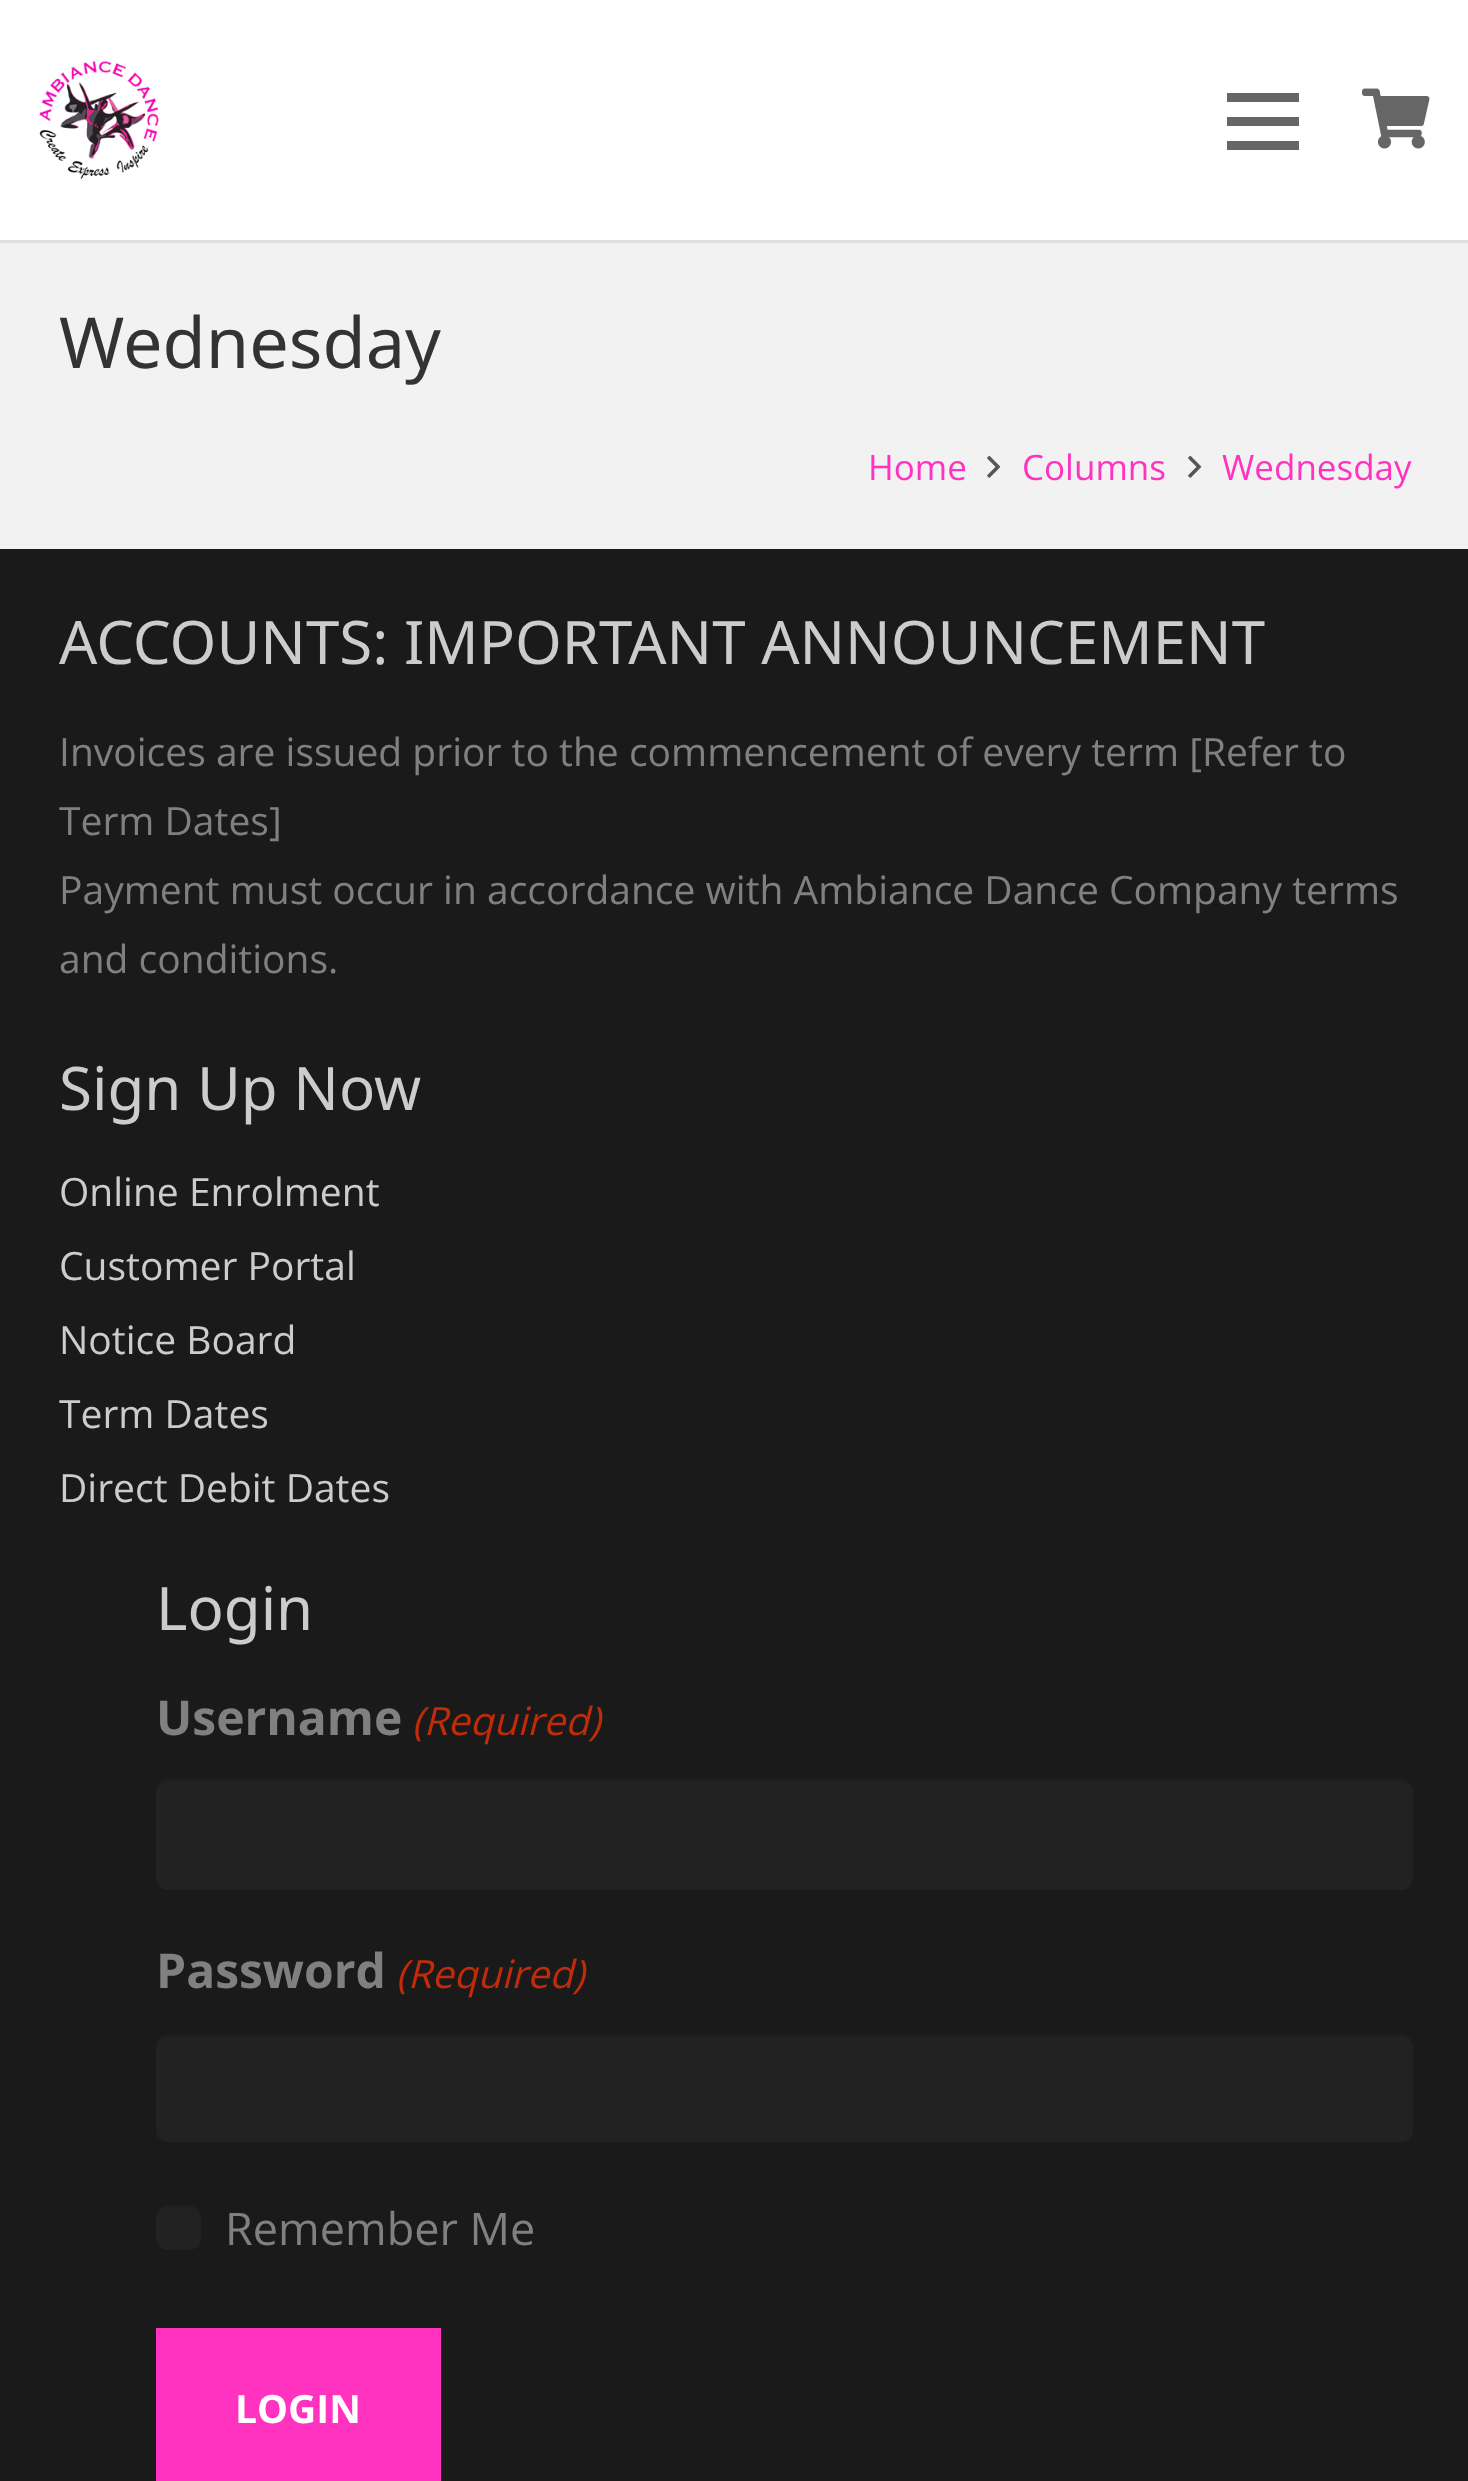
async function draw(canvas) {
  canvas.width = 1468;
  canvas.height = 2481;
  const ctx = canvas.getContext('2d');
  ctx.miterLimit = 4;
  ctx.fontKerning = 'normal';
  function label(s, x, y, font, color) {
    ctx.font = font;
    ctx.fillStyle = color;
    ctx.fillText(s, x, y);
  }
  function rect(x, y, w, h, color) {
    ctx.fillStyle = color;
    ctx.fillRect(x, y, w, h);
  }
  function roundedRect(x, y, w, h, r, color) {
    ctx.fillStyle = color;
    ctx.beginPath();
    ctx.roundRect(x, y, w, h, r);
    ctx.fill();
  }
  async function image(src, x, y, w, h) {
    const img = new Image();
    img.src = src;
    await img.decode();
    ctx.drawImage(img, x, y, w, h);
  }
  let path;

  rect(0, 0, 1468, 2481, '#f2f2f2');
  rect(0, 240, 1468, 3, '#dfdfdf');
  rect(0, 0, 1468, 240, '#fff');
  await image('assets/img1.png', 39, 60, 120, 120);
  rect(1227, 117, 72, 9, '#666');
  rect(1227, 93, 72, 9, '#666');
  rect(1227, 141, 72, 9, '#666');
  await image('assets/img2.png', 1362, 88, 68, 61);
  label('Wednesday', 59, 368, '70.25px Noto Sans', '#333');
  label('Home', 868, 480, '35px Open Sans', '#ff33c0');
  await image('assets/img3.png', 987, 455, 14, 23);
  label('Columns', 1022, 480, '35px Open Sans', '#ff33c0');
  await image('assets/img3.png', 1188, 455, 14, 23);
  label('Wednesday', 1222, 480, '35px Open Sans', '#ff33c0');
  rect(0, 549, 1468, 1932, '#1a1a1a');
  label('ACCOUNTS: IMPORTANT ANNOUNCEMENT', 59, 664, '60px Noto Sans', '#ccc');
  label('Invoices are issued prior to the commencement of every term [Refer to', 59, 766, '39px Open Sans', '#808080');
  label('Term Dates]', 59, 835, '39px Open Sans', '#808080');
  label('Payment must occur in accordance with Ambiance Dance Company terms', 59, 904, '39px Open Sans', '#808080');
  label('and conditions.', 59, 973, '39px Open Sans', '#808080');
  label('Sign Up Now', 59, 1110, '60px Noto Sans', '#ccc');
  label('Online Enrolment', 59, 1206, '39px Open Sans', '#ccc');
  label('Customer Portal', 59, 1280, '39px Open Sans', '#ccc');
  label('Notice Board', 59, 1354, '39px Open Sans', '#ccc');
  label('Term Dates', 59, 1428, '39px Open Sans', '#ccc');
  label('Direct Debit Dates', 59, 1502, '39px Open Sans', '#ccc');
  label('Login', 156, 1630, '60px Noto Sans', '#ccc');
  label('Username', 156, 1735, 'bold 48px Open Sans', '#808080');
  label('(Required)', 412, 1735, 'italic 39px Open Sans', '#c02b0a');
  roundedRect(156, 1779, 1257, 111, 12, '#222');
  ctx.fillStyle = '#00000014';
  path = new Path2D('M168 1782H1401C1408 1782 1413 1787 1413 1794V1791C1413 1784 1408 1779 1401 1779H168C161 1779 156 1784 156 1791V1794C156 1787 161 1782 168 1782Z');
  ctx.fill(path);
  label('Password', 156, 1988, 'bold 48px Open Sans', '#808080');
  label('(Required)', 396, 1988, 'italic 39px Open Sans', '#c02b0a');
  roundedRect(156, 2034, 1257, 108, 12, '#222');
  ctx.fillStyle = '#00000014';
  path = new Path2D('M168 2037H1401C1408 2037 1413 2042 1413 2049V2046C1413 2039 1408 2034 1401 2034H168C161 2034 156 2039 156 2046V2049C156 2042 161 2037 168 2037Z');
  ctx.fill(path);
  roundedRect(156, 2205, 45, 45, 12, '#222');
  ctx.fillStyle = '#00000014';
  path = new Path2D('M168 2208H189C196 2208 201 2213 201 2220C201 2204 191 2205 178 2205C166 2205 156 2204 156 2220C156 2213 161 2208 168 2208Z');
  ctx.fill(path);
  label('Remember Me', 225, 2245, '45px Open Sans', '#808080');
  rect(156, 2328, 285, 153, '#ff33c0');
  label('LOGIN', 235, 2423, 'bold 39px Open Sans', '#fff');
}

draw(document.querySelector('canvas'));
